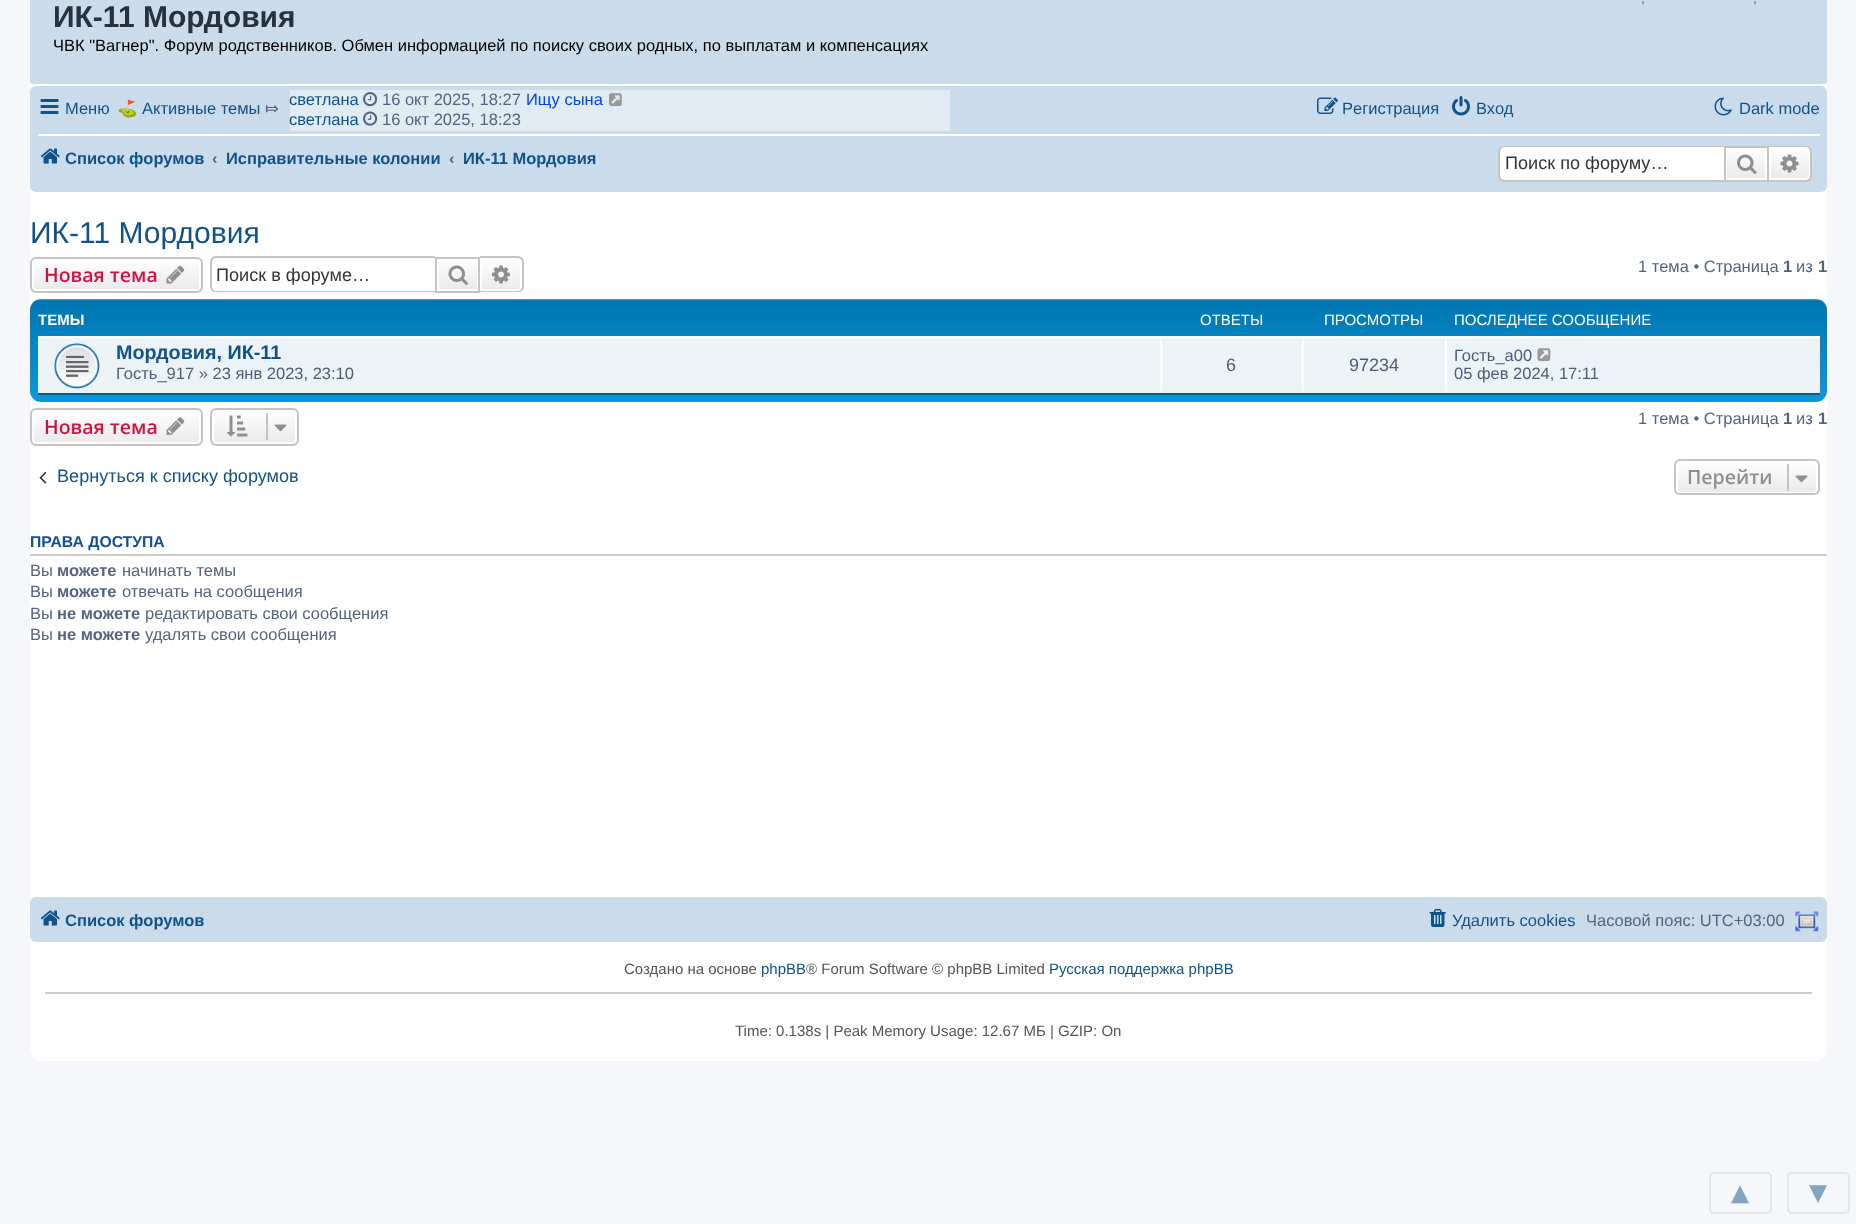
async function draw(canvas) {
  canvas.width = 1856;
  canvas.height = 1224;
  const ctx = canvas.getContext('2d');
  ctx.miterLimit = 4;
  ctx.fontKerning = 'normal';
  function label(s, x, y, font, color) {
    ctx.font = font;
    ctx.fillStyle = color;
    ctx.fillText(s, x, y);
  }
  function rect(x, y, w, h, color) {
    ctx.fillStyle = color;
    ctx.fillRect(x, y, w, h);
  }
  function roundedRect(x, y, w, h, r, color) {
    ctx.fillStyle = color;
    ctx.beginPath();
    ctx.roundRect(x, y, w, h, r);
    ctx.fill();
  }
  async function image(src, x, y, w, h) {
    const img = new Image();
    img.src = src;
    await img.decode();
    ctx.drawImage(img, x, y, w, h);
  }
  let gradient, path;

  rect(0, 0, 1856, 1224, '#f5f7fa');
  roundedRect(30, -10, 1797, 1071, 12, '#fff');
  roundedRect(30, -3, 1797, 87, 3, '#cadceb');
  label(',', 1641, 3, '14px Liberation Sans', '#536482');
  label(',', 1753, 3, '14px Liberation Sans', '#536482');
  label('ИК-11 Мордовия', 53, 27, 'bold 30px Liberation Sans', '#28313f');
  label('ЧВК "Вагнер". Форум родственников. Обмен информацией по поиску своих родных, по выплатам и компенсациях', 53, 51, '16.5px Liberation Sans', '#000');
  roundedRect(30, 86, 1797, 106, 6, '#cadceb');
  await image('assets/img1.png', 40, 99, 19, 15);
  label('Меню', 65, 114, '16.5px Liberation Sans', '#105289');
  label('⛳', 117, 114, '16.5px Noto Color Emoji', '#536482');
  label('Активные темы', 142, 114, '16.5px Liberation Sans', '#105289');
  label('⤇', 265, 114, '16.5px DejaVu Sans', '#536482');
  rect(290, 90, 660, 41, '#e1ebf2');
  label('светлана', 289, 105, '16.5px Liberation Sans', '#105289');
  await image('assets/img2.png', 363, 92, 15, 15);
  label('16 окт 2025, 18:27', 382, 105, '16.5px Liberation Sans', '#536482');
  label('Ищу сына', 526, 105, '16.5px Liberation Sans', '#0040ff');
  await image('assets/img3.png', 609, 93, 13, 14);
  label('светлана', 289, 125, '16.5px Liberation Sans', '#105289');
  await image('assets/img4.png', 363, 111, 15, 15);
  label('16 окт 2025, 18:23', 382, 125, '16.5px Liberation Sans', '#536482');
  await image('assets/img5.png', 1317, 97, 21, 17);
  label('Р', 1342, 114, '16.5px Liberation Sans', '#105289');
  label('егистрация', 1353, 114, '16.5px Liberation Sans', '#105289');
  await image('assets/img6.png', 1452, 96, 18, 20);
  label('Вход', 1476, 114, '16.5px Liberation Sans', '#105289');
  await image('assets/img7.png', 1714, 97, 18, 19);
  label('Dark mode', 1739, 114, '16.5px Liberation Sans', '#105289');
  rect(38, 134, 1782, 2, '#fff');
  await image('assets/img8.png', 40, 148, 20, 16);
  label('Список форумов', 65, 164, 'bold 16.5px Liberation Sans', '#105289');
  label('‹', 212, 164, 'bold 16.5px Liberation Sans', '#536482');
  label('Исправительные колонии', 226, 164, 'bold 16.5px Liberation Sans', '#105289');
  label('‹', 449, 164, 'bold 16.5px Liberation Sans', '#536482');
  label('ИК-11 Мордовия', 463, 164, 'bold 16.5px Liberation Sans', '#105289');
  ctx.fillStyle = '#fff';
  ctx.beginPath();
  ctx.roundRect(1500, 147, 224, 33, [5, 0, 0, 5]);
  ctx.fill();
  ctx.fillStyle = '#c7c3bf';
  path = new Path2D('M1504 146H1724V182H1504C1501 182 1498 179 1498 176V152C1498 148 1501 146 1504 146ZM1504 147H1724V180H1504C1502 180 1500 178 1500 176V152C1500 149 1502 147 1504 147Z');
  ctx.fill(path, 'evenodd');
  label('Поиск по форуму…', 1505, 169, '18.1px Liberation Sans', '#333');
  gradient = ctx.createLinearGradient(1746, 147, 1746, 180);
  gradient.addColorStop(0, '#fff');
  gradient.addColorStop(1, '#e9e9e9');
  ctx.fillStyle = gradient;
  ctx.fillRect(1727, 149, 38, 29);
  ctx.strokeStyle = '#fff';
  ctx.lineWidth = 2;
  ctx.strokeRect(1726, 148, 40, 31);
  ctx.strokeStyle = '#c7c3bf';
  ctx.strokeRect(1725, 147, 43, 34);
  await image('assets/img9.png', 1737, 154, 20, 20);
  gradient = ctx.createLinearGradient(1790, 147, 1790, 180);
  gradient.addColorStop(0, '#fff');
  gradient.addColorStop(1, '#e9e9e9');
  ctx.fillStyle = gradient;
  ctx.beginPath();
  ctx.roundRect(1770, 148, 40, 31, [0, 4, 4, 0]);
  ctx.fill();
  ctx.strokeStyle = '#fff';
  ctx.stroke();
  ctx.fillStyle = '#c7c3bf';
  path = new Path2D('M1768 146H1806C1809 146 1812 148 1812 152V176C1812 179 1809 182 1806 182H1768ZM1768 147H1806C1808 147 1810 149 1810 152V176C1810 178 1808 180 1806 180H1768Z');
  ctx.fill(path, 'evenodd');
  await image('assets/img10.png', 1780, 154, 19, 19);
  label('ИК-11 Мордовия', 30, 243, '30px Liberation Sans', '#105289');
  ctx.save();
  ctx.beginPath();
  ctx.roundRect(30, 257, 173, 36, 6);
  ctx.clip();
  gradient = ctx.createLinearGradient(116, 258, 116, 291);
  gradient.addColorStop(0, '#fff');
  gradient.addColorStop(1, '#e9e9e9');
  ctx.fillStyle = gradient;
  ctx.fillRect(30, 258, 173, 33);
  ctx.restore();
  ctx.beginPath();
  ctx.roundRect(33, 259, 167, 31, 4);
  ctx.stroke();
  ctx.beginPath();
  ctx.roundRect(31, 258, 171, 34, 5);
  ctx.strokeStyle = '#c7c3bf';
  ctx.stroke();
  label('Новая тема', 44, 282, '600 19.5px Open Sans', '#d31141');
  await image('assets/img11.png', 166, 265, 19, 19);
  ctx.fillStyle = '#c7c3bf';
  path = new Path2D('M216 256H435V292H216C213 292 210 290 210 286V262C210 259 213 256 216 256ZM216 258H435V291H216C214 291 212 289 212 286V262C212 260 214 258 216 258Z');
  ctx.fill(path, 'evenodd');
  label('Поиск в форуме…', 216, 281, '18.1px Liberation Sans', '#333');
  gradient = ctx.createLinearGradient(458, 258, 458, 291);
  gradient.addColorStop(0, '#fff');
  gradient.addColorStop(1, '#e9e9e9');
  ctx.fillStyle = gradient;
  ctx.fillRect(439, 262, 38, 27);
  ctx.strokeRect(436, 258, 43, 34);
  await image('assets/img12.png', 448, 265, 20, 20);
  gradient = ctx.createLinearGradient(501, 258, 501, 291);
  gradient.addColorStop(0, '#fff');
  gradient.addColorStop(1, '#e9e9e9');
  ctx.fillStyle = gradient;
  ctx.beginPath();
  ctx.roundRect(481, 259, 40, 31, [0, 4, 4, 0]);
  ctx.fill();
  ctx.strokeStyle = '#fff';
  ctx.stroke();
  ctx.fillStyle = '#c7c3bf';
  path = new Path2D('M480 256H518C521 256 524 259 524 262V286C524 290 521 292 518 292H480ZM480 258H518C520 258 522 260 522 262V286C522 289 520 291 518 291H480Z');
  ctx.fill(path, 'evenodd');
  await image('assets/img13.png', 492, 265, 18, 19);
  label('1 тема • Страница', 1638, 272, '16.5px Liberation Sans', '#536482');
  label('1', 1783, 272, 'bold 16.5px Liberation Sans', '#536482');
  label('из', 1796, 272, '16.5px Liberation Sans', '#536482');
  label('1', 1818, 272, 'bold 16.5px Liberation Sans', '#536482');
  gradient = ctx.createLinearGradient(929, 298, 929, 436);
  gradient.addColorStop(0, '#6aceff');
  gradient.addColorStop(0.02, '#0076b1');
  gradient.addColorStop(1, '#12a3eb');
  ctx.fillStyle = gradient;
  ctx.beginPath();
  ctx.roundRect(30, 299, 1797, 103, 11);
  ctx.fill();
  ctx.save();
  ctx.beginPath();
  ctx.rect(38, 306, 1782, 30);
  ctx.clip();
  label('ТЕМЫ', 38, 325, 'bold 15px Liberation Sans', '#fff');
  ctx.restore();
  label('ОТВЕТЫ', 1200, 325, '15px Liberation Sans', '#fff');
  label('ПРОСМОТРЫ', 1324, 325, '15px Liberation Sans', '#fff');
  label('ПОСЛЕДНЕЕ СООБЩЕНИЕ', 1454, 325, '15px Liberation Sans', '#fff');
  rect(38, 338, 1782, 55, '#ecf3f7');
  rect(38, 336, 1782, 2, '#fff');
  rect(38, 393, 1782, 2, '#00608f');
  await image('assets/img14.png', 54, 343, 46, 46);
  label('Мордовия, ИК-11', 116, 359, 'bold 19.75px Liberation Sans', '#105289');
  label('Гость_917 » 23 янв 2023, 23:10', 116, 379, '16.5px Liberation Sans', '#4c5d77');
  rect(1160, 339, 2, 53, '#fff');
  label('6', 1226, 371, '18px Liberation Sans', '#4c5d77');
  rect(1302, 339, 2, 53, '#fff');
  label('97234', 1349, 371, '18px Liberation Sans', '#4c5d77');
  rect(1445, 339, 2, 53, '#fff');
  label('Гость_a00', 1454, 361, '16.5px Liberation Sans', '#4c5d77');
  await image('assets/img15.png', 1537, 348, 14, 14);
  label('05 фев 2024, 17:11', 1454, 379, '16.5px Liberation Sans', '#4c5d77');
  ctx.save();
  ctx.beginPath();
  ctx.roundRect(30, 408, 173, 38, 6);
  ctx.clip();
  gradient = ctx.createLinearGradient(116, 410, 116, 444);
  gradient.addColorStop(0, '#fff');
  gradient.addColorStop(1, '#e9e9e9');
  ctx.fillStyle = gradient;
  ctx.fillRect(30, 410, 173, 34);
  ctx.restore();
  ctx.beginPath();
  ctx.roundRect(33, 411, 167, 32, 4);
  ctx.stroke();
  ctx.beginPath();
  ctx.roundRect(31, 409, 171, 36, 5);
  ctx.strokeStyle = '#c7c3bf';
  ctx.stroke();
  label('Новая тема', 44, 434, '600 19.5px Open Sans', '#d31141');
  await image('assets/img16.png', 166, 417, 19, 18);
  ctx.save();
  ctx.beginPath();
  ctx.roundRect(210, 408, 89, 38, 6);
  ctx.clip();
  gradient = ctx.createLinearGradient(254, 410, 254, 444);
  gradient.addColorStop(0, '#fff');
  gradient.addColorStop(1, '#e9e9e9');
  ctx.fillStyle = gradient;
  ctx.fillRect(210, 410, 89, 34);
  ctx.restore();
  ctx.beginPath();
  ctx.roundRect(213, 411, 83, 32, 4);
  ctx.strokeStyle = '#fff';
  ctx.stroke();
  ctx.beginPath();
  ctx.roundRect(211, 409, 87, 36, 5);
  ctx.strokeStyle = '#c7c3bf';
  ctx.stroke();
  await image('assets/img17.png', 227, 415, 21, 22);
  rect(266, 413, 2, 27, '#c7c3bf');
  await image('assets/img18.png', 274, 424, 13, 8);
  label('1 тема • Страница', 1638, 424, '16.5px Liberation Sans', '#536482');
  label('1', 1783, 424, 'bold 16.5px Liberation Sans', '#536482');
  label('из', 1796, 424, '16.5px Liberation Sans', '#536482');
  label('1', 1818, 424, 'bold 16.5px Liberation Sans', '#536482');
  await image('assets/img19.png', 39, 472, 8, 12);
  label('Вернуться к списку форумов', 57, 482, '18.1px Liberation Sans', '#105289');
  ctx.save();
  ctx.beginPath();
  ctx.roundRect(1674, 459, 146, 36, 6);
  ctx.clip();
  gradient = ctx.createLinearGradient(1747, 461, 1747, 494);
  gradient.addColorStop(0, '#fff');
  gradient.addColorStop(1, '#e9e9e9');
  ctx.fillStyle = gradient;
  ctx.fillRect(1674, 461, 146, 33);
  ctx.restore();
  ctx.beginPath();
  ctx.roundRect(1677, 462, 140, 31, 4);
  ctx.strokeStyle = '#fff';
  ctx.stroke();
  ctx.beginPath();
  ctx.roundRect(1675, 460, 144, 34, 5);
  ctx.strokeStyle = '#c7c3bf';
  ctx.stroke();
  label('Перейти', 1687, 484, '600 19.5px Open Sans', '#8f8f8f');
  rect(1787, 464, 2, 27, '#c7c3bf');
  await image('assets/img20.png', 1795, 475, 13, 8);
  rect(30, 554, 1797, 2, '#ccc');
  label('ПРАВА ДОСТУПА', 30, 547, 'bold 15.75px Liberation Sans', '#115098');
  label('Вы', 30, 576, '16.5px Liberation Sans', '#536482');
  label('можете', 57, 576, 'bold 16.5px Liberation Sans', '#536482');
  label('начинать темы', 122, 576, '16.5px Liberation Sans', '#536482');
  label('Вы', 30, 597, '16.5px Liberation Sans', '#536482');
  label('можете', 57, 597, 'bold 16.5px Liberation Sans', '#536482');
  label('отвечать на сообщения', 122, 597, '16.5px Liberation Sans', '#536482');
  label('Вы', 30, 619, '16.5px Liberation Sans', '#536482');
  label('не можете', 57, 619, 'bold 16.5px Liberation Sans', '#536482');
  label('редактировать свои сообщения', 145, 619, '16.5px Liberation Sans', '#536482');
  label('Вы', 30, 640, '16.5px Liberation Sans', '#536482');
  label('не можете', 57, 640, 'bold 16.5px Liberation Sans', '#536482');
  label('удалять свои сообщения', 145, 640, '16.5px Liberation Sans', '#536482');
  roundedRect(30, 897, 1797, 45, 6, '#cadceb');
  await image('assets/img8.png', 40, 910, 20, 16);
  label('Список форумов', 65, 926, 'bold 16.5px Liberation Sans', '#105289');
  await image('assets/img21.png', 1429, 909, 17, 18);
  label('Удалить cookies', 1452, 926, '16.5px Liberation Sans', '#105289');
  label('Часовой пояс: UTC+03:00', 1586, 926, '16.5px Liberation Sans', '#536482');
  await image('assets/img22.png', 1795, 911, 24, 21);
  label('Создано на основе', 624, 974, '15px Liberation Sans', '#555');
  label('phpBB', 761, 974, '15px Liberation Sans', '#105289');
  label('® Forum Software © phpBB Limited', 806, 974, '15px Liberation Sans', '#555');
  label('Русская поддержка phpBB', 1049, 974, '15px Liberation Sans', '#105289');
  rect(45, 992, 1767, 2, '#ccc');
  label('Time: 0.138s | Peak Memory Usage: 12.67 МБ | GZIP: On', 735, 1036, '15px Liberation Sans', '#555');
  ctx.beginPath();
  ctx.roundRect(1710, 1173, 61, 40, 4);
  ctx.strokeStyle = '#e4e5e7';
  ctx.stroke();
  label('▲', 1731, 1202, 'bold 30px DejaVu Sans Mono', '#83a5c2');
  ctx.beginPath();
  ctx.roundRect(1788, 1173, 61, 40, 4);
  ctx.stroke();
  label('▼', 1809, 1202, 'bold 30px DejaVu Sans Mono', '#83a5c2');
}

draw(document.querySelector('canvas'));
